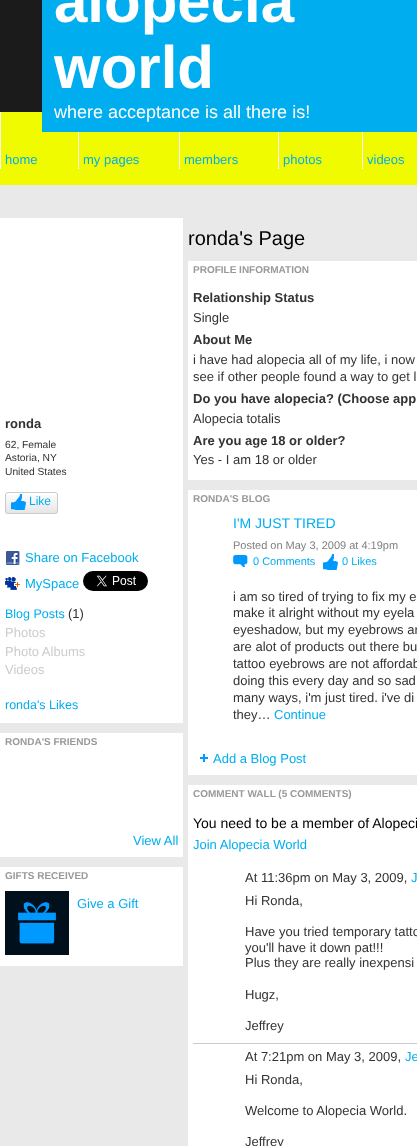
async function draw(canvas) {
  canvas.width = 417;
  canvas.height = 1146;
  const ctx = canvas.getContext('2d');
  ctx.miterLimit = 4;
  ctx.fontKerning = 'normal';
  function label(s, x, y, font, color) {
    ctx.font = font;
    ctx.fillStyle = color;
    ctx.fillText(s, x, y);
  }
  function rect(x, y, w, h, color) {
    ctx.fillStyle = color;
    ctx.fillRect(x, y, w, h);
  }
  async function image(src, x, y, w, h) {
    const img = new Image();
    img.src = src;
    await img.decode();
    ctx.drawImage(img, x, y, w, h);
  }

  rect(0, 0, 417, 1146, '#1b1b1b');
  rect(0, 112, 417, 73, '#f0fb00');
  rect(42, 0, 375, 132, '#00aeef');
  label('alopecia', 54, 22, 'bold 60px Liberation Sans', '#fff');
  label('world', 54, 88, 'bold 60px Liberation Sans', '#fff');
  label('where acceptance is all there is!', 54, 118, '18px Liberation Sans', '#fff');
  rect(0, 112, 1, 57, '#fff');
  label('home', 5, 164, '13px Liberation Sans', '#00aeef');
  rect(78, 132, 1, 37, '#fff');
  label('my pages', 83, 164, '13px Liberation Sans', '#00aeef');
  rect(179, 132, 1, 37, '#fff');
  label('members', 184, 164, '13px Liberation Sans', '#00aeef');
  rect(278, 132, 1, 37, '#fff');
  label('photos', 283, 164, '13px Liberation Sans', '#00aeef');
  rect(362, 132, 1, 37, '#fff');
  label('videos', 367, 164, '13px Liberation Sans', '#00aeef');
  rect(0, 185, 417, 961, '#e9e9e9');
  rect(0, 218, 183, 505, '#fff');
  label('ronda', 5, 428, 'bold 13px Liberation Sans', '#333');
  label('62, Female', 5, 448, '10.25px Liberation Sans', '#333');
  label('Astoria, NY', 5, 461, '10.25px Liberation Sans', '#333');
  label('United States', 5, 475, '10.25px Liberation Sans', '#333');
  await image('assets/img1.png', 5, 495, 53, 19);
  ctx.beginPath();
  ctx.roundRect(5.5, 492.5, 52, 21, 2.5);
  ctx.strokeStyle = '#cbcbcb';
  ctx.stroke();
  await image('assets/img2.png', 11, 494, 15, 16);
  label('Like', 29, 505, '12px Liberation Sans', '#00aeef');
  await image('assets/img3.png', 6, 551, 14, 14);
  label('Share on Facebook', 25, 562, '13px Liberation Sans', '#00aeef');
  await image('assets/img4.png', 5, 577, 15, 13);
  label('MySpace', 25, 588, '13px Liberation Sans', '#00aeef');
  await image('assets/img5.png', 83, 571, 65, 20);
  label('Blog Posts', 5, 618, '12.5px Liberation Sans', '#00aeef');
  label('(1)', 68, 618, '13px Liberation Sans', '#333');
  label('Photos', 5, 637, '13px Liberation Sans', '#ccc');
  label('Photo Albums', 5, 656, '13px Liberation Sans', '#ccc');
  label('Videos', 5, 674, '13px Liberation Sans', '#ccc');
  label('ronda\'s Likes', 5, 709, '12.5px Liberation Sans', '#00aeef');
  rect(0, 733, 183, 124, '#fff');
  label('RONDA\'S FRIENDS', 5, 745, 'bold 10px Liberation Sans', '#999');
  label('View All', 133, 845, '13px Liberation Sans', '#00aeef');
  rect(0, 867, 183, 99, '#fff');
  label('GIFTS RECEIVED', 5, 879, 'bold 10px Liberation Sans', '#999');
  await image('assets/img6.png', 5, 891, 64, 64);
  label('Give a Gift', 77, 908, '13px Liberation Sans', '#00aeef');
  label('ronda\'s Page', 188, 245, '20px Liberation Sans', '#000');
  rect(188, 261, 229, 219, '#fff');
  label('PROFILE INFORMATION', 193, 273, 'bold 10px Liberation Sans', '#999');
  label('Relationship Status', 193, 302, 'bold 13px Liberation Sans', '#333');
  label('Single', 193, 322, '13px Liberation Sans', '#333');
  label('About Me', 193, 344, 'bold 13px Liberation Sans', '#333');
  label('i have had alopecia all of my life, i now', 193, 364, '13px Liberation Sans', '#333');
  label('see if other people found a way to get l', 193, 381, '13px Liberation Sans', '#333');
  label('Do you have alopecia? (Choose app', 193, 403, 'bold 13px Liberation Sans', '#333');
  label('Alopecia totalis', 193, 423, '13px Liberation Sans', '#333');
  label('Are you age 18 or older?', 193, 445, 'bold 13px Liberation Sans', '#333');
  label('Yes - I am 18 or older', 193, 464, '13px Liberation Sans', '#333');
  rect(188, 490, 229, 285, '#fff');
  label('RONDA\'S BLOG', 193, 502, 'bold 10px Liberation Sans', '#999');
  label('I\'M JUST TIRED', 233, 528, '14px Liberation Sans', '#00aeef');
  label('Posted on May 3, 2009 at 4:19pm', 233, 549, '11px Liberation Sans', '#7f7f7f');
  await image('assets/img7.png', 233, 555, 15, 12);
  label('0 Comments', 253, 565, '11px Liberation Sans', '#00aeef');
  await image('assets/img8.png', 323, 554, 15, 16);
  label('0 Likes', 342, 565, '11px Liberation Sans', '#00aeef');
  label('i am so tired of trying to fix my e', 233, 601, '13px Liberation Sans', '#333');
  label('make it alright without my eyela', 233, 617, '13px Liberation Sans', '#333');
  label('eyeshadow, but my eyebrows ar', 233, 634, '13px Liberation Sans', '#333');
  label('are alot of products out there bu', 233, 651, '13px Liberation Sans', '#333');
  label('tattoo eyebrows are not affordab', 233, 668, '13px Liberation Sans', '#333');
  label('doing this every day and so sad', 233, 685, '13px Liberation Sans', '#333');
  label('many ways, i\'m just tired. i\'ve di', 233, 702, '13px Liberation Sans', '#333');
  label('they…', 233, 719, '13px Liberation Sans', '#333');
  label('Continue', 274, 719, '13px Liberation Sans', '#00aeef');
  await image('assets/img9.png', 200, 754, 8, 8);
  label('Add a Blog Post', 213, 763, '13px Liberation Sans', '#00aeef');
  rect(188, 785, 229, 361, '#fff');
  label('COMMENT WALL (5 COMMENTS)', 193, 797, 'bold 10px Liberation Sans', '#999');
  label('You need to be a member of Alopeci', 193, 828, '14px Liberation Sans', '#000');
  label('Join Alopecia World', 193, 849, '13px Liberation Sans', '#00aeef');
  rect(193, 1043, 224, 1, '#cbcbcb');
  label('At 11:36pm on May 3, 2009,', 245, 882, '13px Liberation Sans', '#333');
  label('J', 411, 882, '13px Liberation Sans', '#00aeef');
  label('Hi Ronda,', 245, 905, '13px Liberation Sans', '#333');
  label('Have you tried temporary tatto', 245, 936, '13px Liberation Sans', '#333');
  label('you\'ll have it down pat!!!', 245, 952, '13px Liberation Sans', '#333');
  label('Plus they are really inexpensi', 245, 967, '13px Liberation Sans', '#333');
  label('Hugz,', 245, 999, '13px Liberation Sans', '#333');
  label('Jeffrey', 245, 1030, '13px Liberation Sans', '#333');
  label('At 7:21pm on May 3, 2009,', 245, 1061, '13px Liberation Sans', '#333');
  label('Je', 405, 1061, '13px Liberation Sans', '#00aeef');
  label('Hi Ronda,', 245, 1084, '13px Liberation Sans', '#333');
  label('Welcome to Alopecia World.', 245, 1115, '13px Liberation Sans', '#333');
  label('Jeffrey', 245, 1146, '13px Liberation Sans', '#333');
}

draw(document.querySelector('canvas'));
